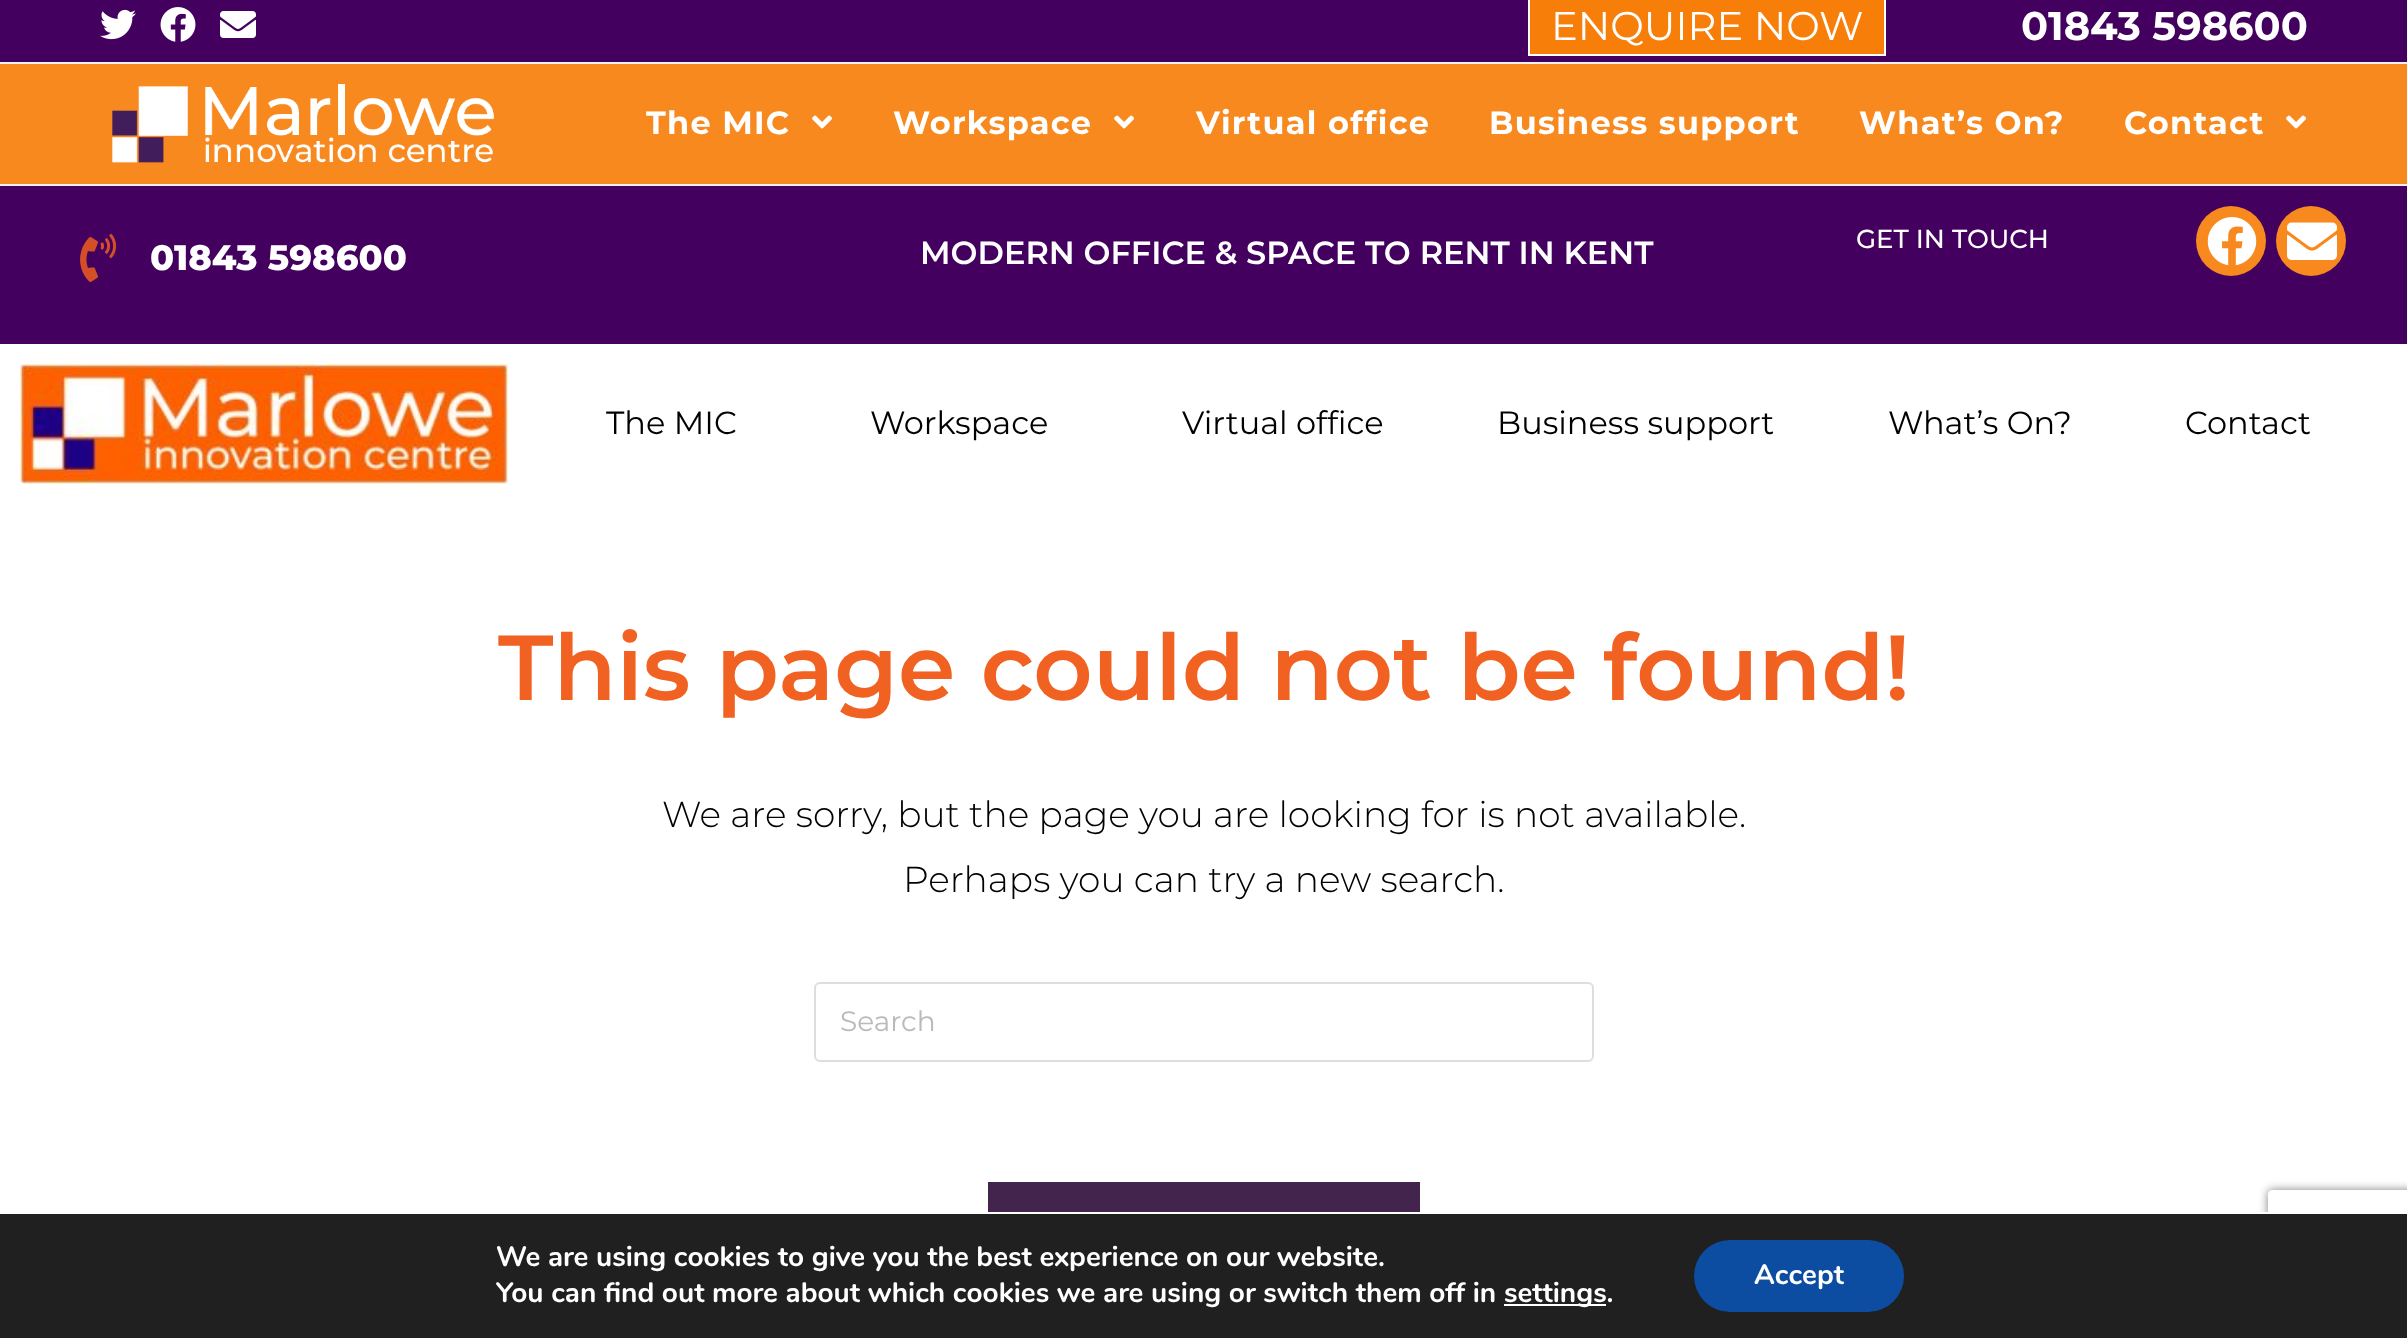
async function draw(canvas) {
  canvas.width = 2407;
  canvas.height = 1338;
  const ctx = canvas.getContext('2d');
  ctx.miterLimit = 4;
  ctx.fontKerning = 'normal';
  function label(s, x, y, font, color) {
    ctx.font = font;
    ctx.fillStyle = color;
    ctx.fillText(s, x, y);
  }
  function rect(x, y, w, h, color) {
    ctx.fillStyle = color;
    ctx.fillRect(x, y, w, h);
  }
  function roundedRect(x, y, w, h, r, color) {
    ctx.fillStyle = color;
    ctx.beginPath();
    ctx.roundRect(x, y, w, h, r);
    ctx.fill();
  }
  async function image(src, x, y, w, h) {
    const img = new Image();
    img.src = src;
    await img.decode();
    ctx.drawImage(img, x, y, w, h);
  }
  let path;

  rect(0, 0, 2407, 1338, '#fff');
  rect(0, 0, 2407, 62, '#43005e');
  rect(0, 62, 2407, 2, '#f1f1f1');
  await image('assets/img1.png', 100, 9, 36, 31);
  await image('assets/img2.png', 160, 7, 36, 35);
  await image('assets/img3.png', 220, 11, 36, 27);
  ctx.fillStyle = '#f77e08';
  ctx.beginPath();
  ctx.rect(1529, -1, 356, 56);
  ctx.fill();
  ctx.strokeStyle = '#fff';
  ctx.lineWidth = 2;
  ctx.stroke();
  label('ENQUIRE NOW', 1551, 40, '40px Montserrat', '#fff');
  label('01843 598600', 2021, 40, 'bold 40px Montserrat', '#fff');
  rect(0, 64, 2407, 120, '#f7891e');
  rect(0, 184, 2407, 2, '#f1f1f1');
  await image('assets/img4.png', 112, 84, 382, 79);
  ctx.letterSpacing = '1.25px';
  label('The MIC', 646, 134, 'bold 32px Montserrat', '#fff');
  await image('assets/img5.png', 812, 115, 20, 14);
  label('Workspace', 893, 134, 'bold 32px Montserrat', '#fff');
  await image('assets/img5.png', 1114, 115, 20, 14);
  label('Virtual office', 1196, 134, 'bold 32px Montserrat', '#fff');
  label('Business support', 1489, 134, 'bold 32px Montserrat', '#fff');
  label('What’s On?', 1859, 134, 'bold 32px Montserrat', '#fff');
  label('Contact', 2124, 134, 'bold 32px Montserrat', '#fff');
  await image('assets/img5.png', 2286, 115, 20, 14);
  rect(0, 186, 2407, 158, '#43005f');
  ctx.letterSpacing = '0px';
  label('GET IN TOUCH', 1856, 248, '500 26px Montserrat', '#fff');
  ctx.fillStyle = '#f8891e';
  ctx.beginPath();
  ctx.arc(2231, 241, 35, 0, 2 * Math.PI);
  ctx.fill();
  await image('assets/img6.png', 2207, 217, 50, 49);
  ctx.beginPath();
  ctx.arc(2311, 241, 35, 0, 2 * Math.PI);
  ctx.fill();
  await image('assets/img7.png', 2287, 222, 50, 38);
  await image('assets/img8.png', 80, 233, 37, 49);
  label('01843 598600', 150, 270, '800 35.25px Montserrat', '#fff');
  label('MODERN OFFICE & SPACE TO RENT IN KENT', 920, 264, '600 32px Montserrat', '#fff');
  await image('assets/img9.png', 20, 364, 488, 120);
  label('The MIC', 606, 434, '32px Montserrat', '#000');
  label('Workspace', 870, 434, '32px Montserrat', '#000');
  label('Virtual office', 1182, 434, '32px Montserrat', '#000');
  label('Business support', 1497, 434, '32px Montserrat', '#000');
  label('What’s On?', 1888, 434, '32px Montserrat', '#000');
  label('Contact', 2185, 434, '32px Montserrat', '#000');
  label('This page could not be found!', 498, 700, '600 92px Montserrat', '#f16222');
  label('We are sorry, but the page you are looking for is not available.', 662, 827, '300 36px Montserrat', '#000');
  label('Perhaps you can try a new search.', 903, 892, '300 36px Montserrat', '#000');
  ctx.beginPath();
  ctx.roundRect(815, 983, 778, 78, 5);
  ctx.strokeStyle = '#ddd';
  ctx.stroke();
  label('Search', 840, 1031, '28px Montserrat', '#bababa');
  rect(988, 1182, 432, 30, '#43244d');
  ctx.save();
  path = new Path2D('M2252 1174H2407V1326H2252ZM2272 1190H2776C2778 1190 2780 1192 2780 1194V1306C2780 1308 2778 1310 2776 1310H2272C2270 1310 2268 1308 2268 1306V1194C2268 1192 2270 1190 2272 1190Z');
  ctx.clip(path, 'evenodd');
  ctx.fillStyle = '#808080';
  ctx.filter = 'blur(5px)';
  ctx.beginPath();
  ctx.roundRect(2268, 1190, 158, 120, 4);
  ctx.fill();
  ctx.filter = 'none';
  ctx.restore();
  rect(0, 1214, 2407, 124, '#202020');
  rect(2258, 1212, 10, 2, '#fff');
  label('We are using cookies to give you the best experience on our website.', 496, 1266, 'bold 28px Nunito', '#fff');
  label('You can find out more about which cookies we are using or switch them off in', 496, 1302, 'bold 28px Nunito', '#fff');
  rect(1504, 1304, 102, 2, '#fff');
  label('settings.', 1504, 1302, 'bold 28px Nunito', '#fff');
  roundedRect(1694, 1240, 210, 72, 36, '#0c4da2');
  label('Accept', 1754, 1284, 'bold 28px Nunito', '#fff');
}

draw(document.querySelector('canvas'));
